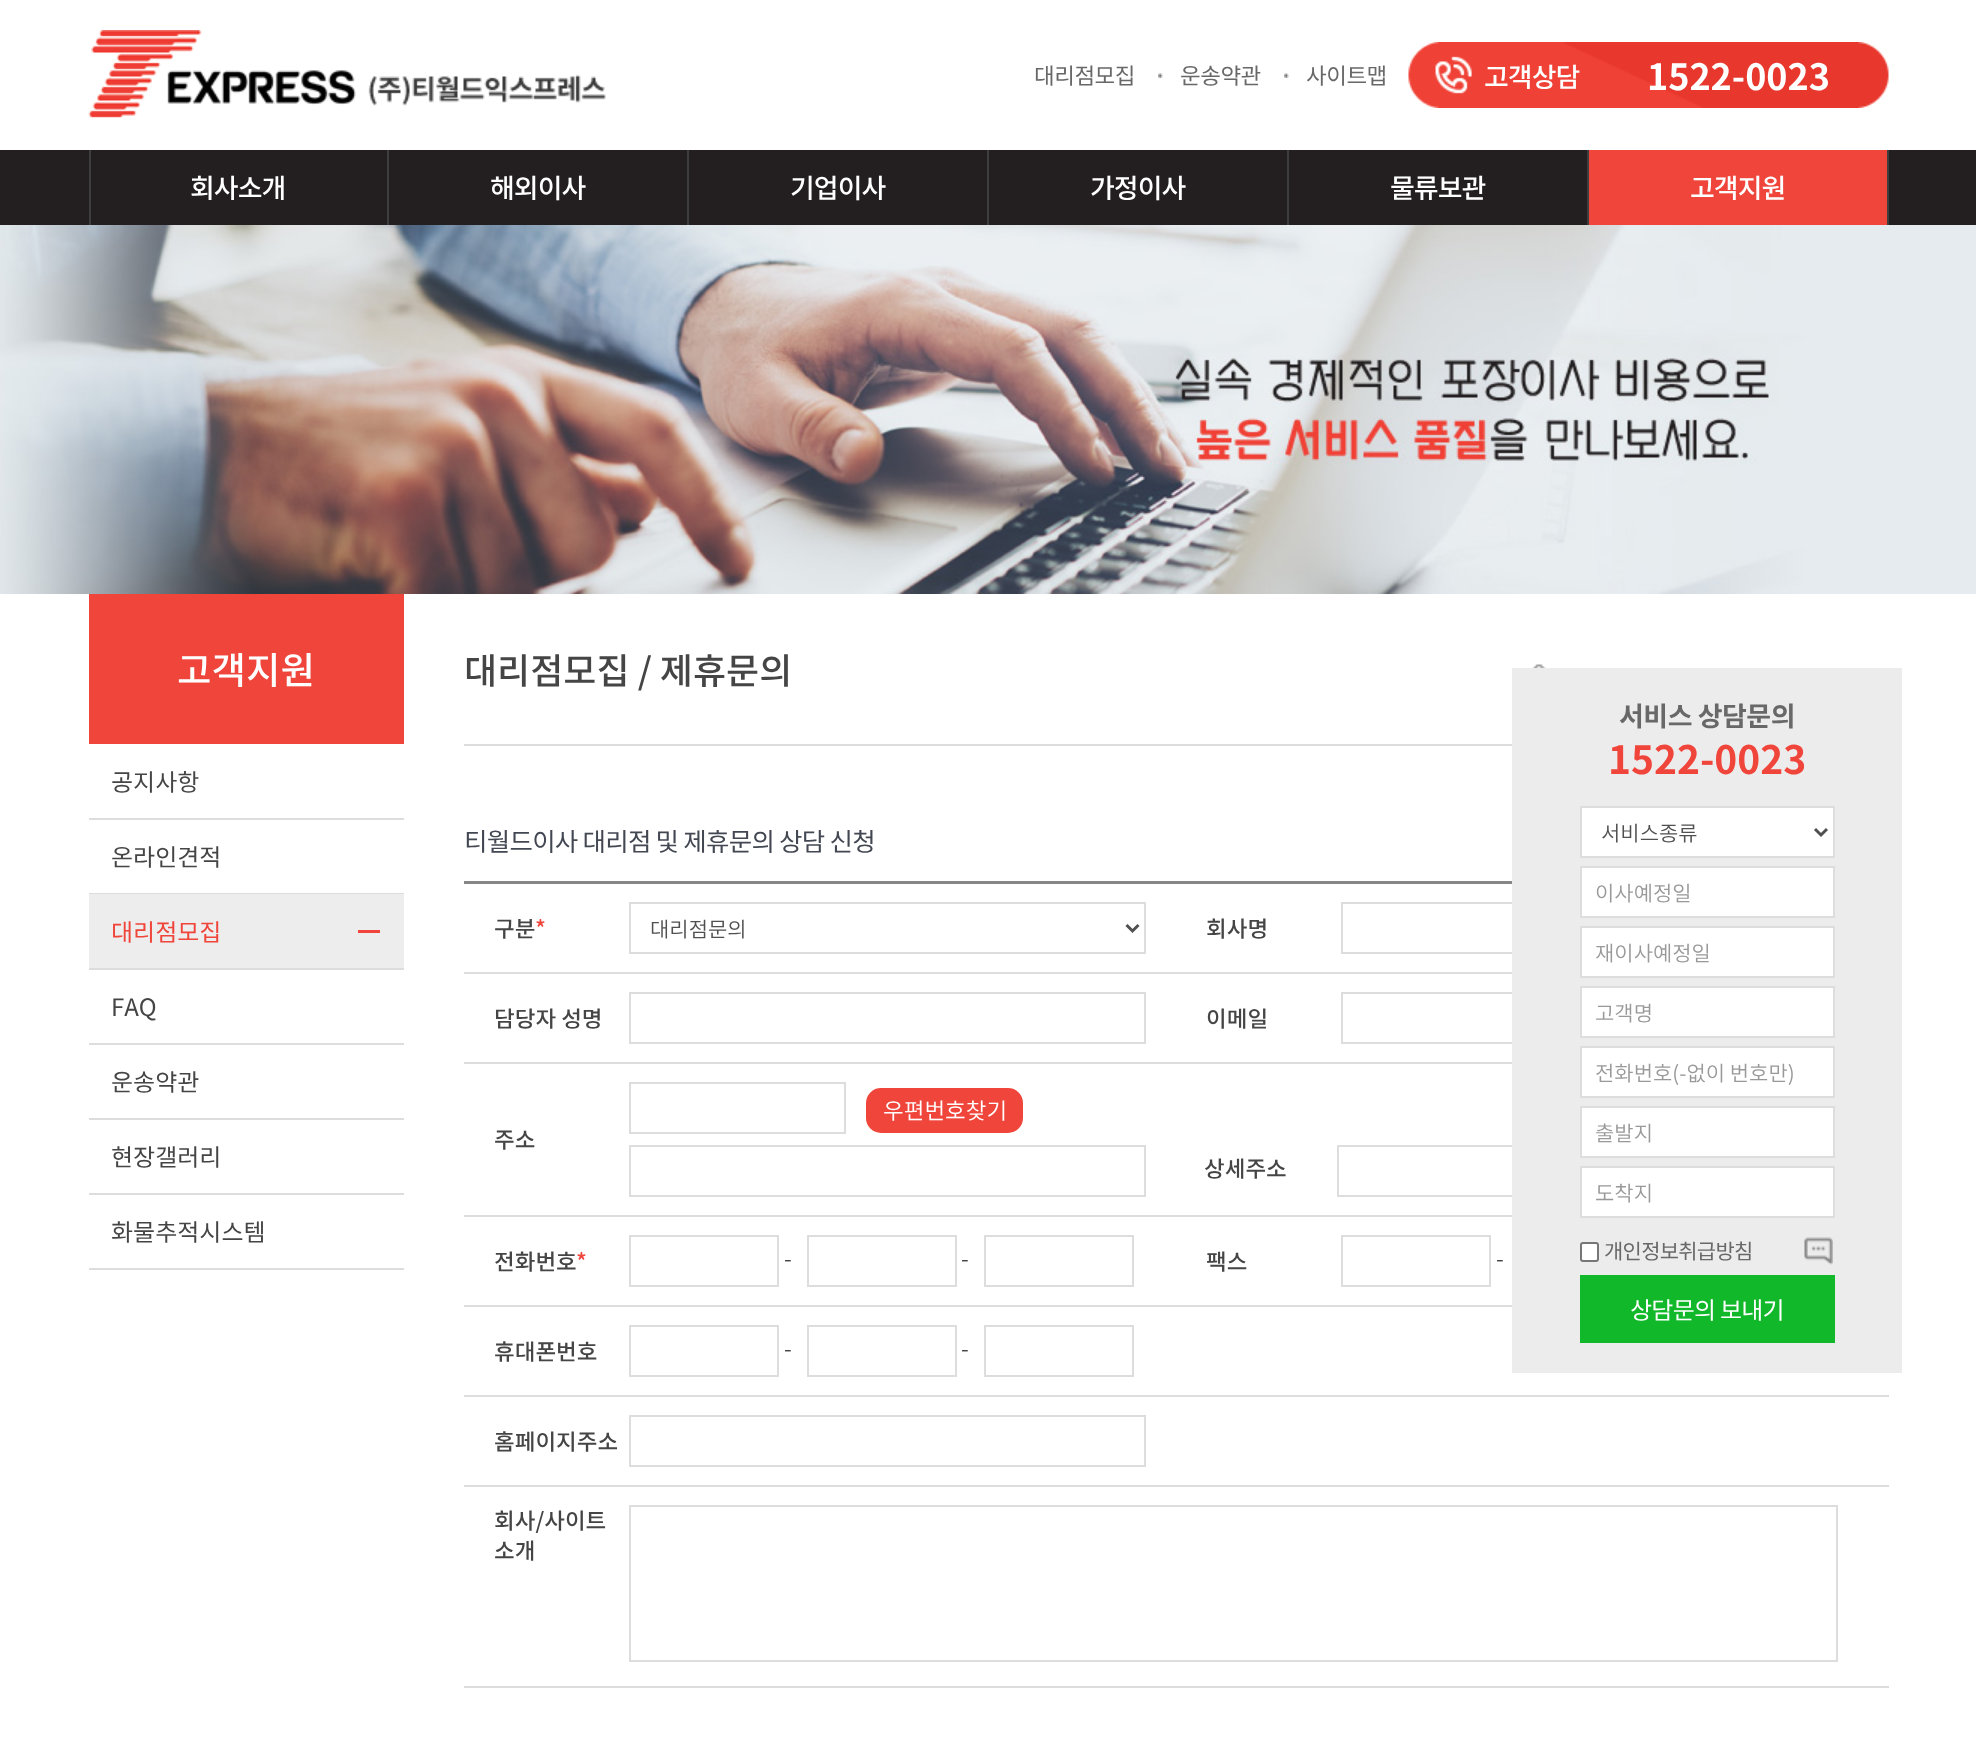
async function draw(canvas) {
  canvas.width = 1976;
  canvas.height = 1748;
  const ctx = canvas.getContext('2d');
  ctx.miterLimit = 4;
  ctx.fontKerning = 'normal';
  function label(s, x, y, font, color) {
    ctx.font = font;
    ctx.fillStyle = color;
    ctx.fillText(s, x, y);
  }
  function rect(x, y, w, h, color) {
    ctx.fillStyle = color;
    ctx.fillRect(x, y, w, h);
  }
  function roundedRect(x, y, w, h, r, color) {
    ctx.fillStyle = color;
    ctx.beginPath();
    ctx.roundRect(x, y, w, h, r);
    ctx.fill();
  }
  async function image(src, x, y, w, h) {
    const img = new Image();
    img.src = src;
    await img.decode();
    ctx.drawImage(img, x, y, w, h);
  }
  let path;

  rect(0, 0, 1976, 1748, '#fff');
  await image('assets/img1.png', 88, 30, 518, 88);
  ctx.letterSpacing = '-0.5px';
  label('대리점모집', 1034, 84, '22.5px Noto Sans KR', '#686868');
  await image('assets/img2.png', 1158, 73, 5, 5);
  label('운송약관', 1180, 84, '22.5px Noto Sans KR', '#686868');
  await image('assets/img2.png', 1284, 73, 5, 5);
  label('사이트맵', 1306, 84, '22.5px Noto Sans KR', '#686868');
  await image('assets/img3.png', 1408, 42, 481, 66);
  ctx.letterSpacing = '-1px';
  label('고객상담', 1484, 87, '500 27px Noto Sans KR', '#fff');
  ctx.letterSpacing = '0px';
  label('1522-0023', 1647, 90, 'bold 36px Noto Sans KR', '#fff');
  rect(0, 150, 1976, 75, '#231f20');
  rect(387, 150, 2, 75, '#3f3e3e');
  rect(89, 150, 2, 75, '#3f3e3e');
  ctx.letterSpacing = '-1px';
  label('회사소개', 190, 198, '500 27px Noto Sans KR', '#fff');
  rect(687, 150, 2, 75, '#3f3e3e');
  label('해외이사', 490, 198, '500 27px Noto Sans KR', '#fff');
  rect(987, 150, 2, 75, '#3f3e3e');
  label('기업이사', 790, 198, '500 27px Noto Sans KR', '#fff');
  rect(1287, 150, 2, 75, '#3f3e3e');
  label('가정이사', 1090, 198, '500 27px Noto Sans KR', '#fff');
  rect(1587, 150, 2, 75, '#3f3e3e');
  label('물류보관', 1390, 198, '500 27px Noto Sans KR', '#fff');
  rect(1887, 150, 2, 75, '#3f3e3e');
  rect(1589, 150, 298, 75, '#f0453b');
  label('고객지원', 1690, 198, '500 27px Noto Sans KR', '#fff');
  await image('assets/img4.png', 0, 225, 1976, 369);
  rect(89, 594, 315, 150, '#f0453b');
  ctx.letterSpacing = '0px';
  label('고객지원', 177, 684, '500 37.5px Noto Sans KR', '#fff');
  rect(89, 818, 315, 2, '#ddd');
  label('공지사항', 111, 791, '24px Noto Sans KR', '#454545');
  rect(89, 893, 315, 1, '#ddd');
  label('온라인견적', 111, 866, '24px Noto Sans KR', '#454545');
  rect(89, 968, 315, 2, '#ddd');
  rect(89, 894, 315, 74, '#ededed');
  rect(358, 930, 22, 3, '#f0453b');
  label('대리점모집', 111, 941, '24px Noto Sans KR', '#f0453b');
  rect(89, 1043, 315, 2, '#ddd');
  label('FAQ', 111, 1016, '24px Noto Sans KR', '#454545');
  rect(89, 1118, 315, 2, '#ddd');
  label('운송약관', 111, 1091, '24px Noto Sans KR', '#454545');
  rect(89, 1193, 315, 2, '#ddd');
  label('현장갤러리', 111, 1166, '24px Noto Sans KR', '#454545');
  rect(89, 1268, 315, 2, '#ddd');
  label('화물추적시스템', 111, 1241, '24px Noto Sans KR', '#454545');
  rect(464, 744, 1048, 2, '#ddd');
  label('대리점모집 / 제휴문의', 464, 684, '500 36px Noto Sans KR', '#454545');
  await image('assets/img5.png', 1524, 664, 30, 4);
  ctx.letterSpacing = '-0.75px';
  label('티월드이사 대리점 및 제휴문의 상담 신청', 464, 851, '25.5px Noto Sans KR', '#424752');
  rect(464, 881, 1048, 3, '#868686');
  rect(464, 972, 1048, 2, '#ddd');
  ctx.strokeStyle = '#ddd';
  ctx.lineWidth = 2;
  ctx.strokeRect(1342, 903, 516, 50);
  ctx.letterSpacing = '0px';
  label('구분', 494, 937, '500 22.5px Noto Sans KR', '#454545');
  label('*', 535, 937, '500 22.5px Noto Sans KR', '#f0453b');
  ctx.strokeRect(630, 903, 515, 50);
  path = new Path2D('M1126.5 925L1132.5 931L1138.5 925');
  ctx.strokeStyle = '#505050';
  ctx.lineWidth = 3;
  ctx.stroke(path);
  label('대리점문의', 650, 937, '300 21px Noto Sans KR', '#505050');
  label('회사명', 1206, 937, '500 22.5px Noto Sans KR', '#454545');
  rect(464, 1062, 1048, 2, '#ddd');
  ctx.strokeStyle = '#ddd';
  ctx.lineWidth = 2;
  ctx.strokeRect(1342, 993, 516, 50);
  label('담당자 성명', 494, 1027, '500 22.5px Noto Sans KR', '#454545');
  ctx.strokeRect(630, 993, 515, 50);
  label('이메일', 1206, 1027, '500 22.5px Noto Sans KR', '#454545');
  label('주소', 494, 1148, '500 22.5px Noto Sans KR', '#454545');
  rect(464, 1215, 1048, 2, '#ddd');
  ctx.strokeRect(630, 1083, 215, 50);
  roundedRect(866, 1088, 157, 45, 15, '#f0453b');
  label('우편번호찾기', 883, 1119, '300 22.5px Noto Sans KR', '#fff');
  ctx.strokeRect(630, 1146, 515, 50);
  label('상세주소', 1204, 1177, '500 22.5px Noto Sans KR', '#454545');
  ctx.strokeRect(1338, 1146, 515, 50);
  label('전화번호', 494, 1270, '500 22.5px Noto Sans KR', '#454545');
  label('*', 576, 1270, '500 22.5px Noto Sans KR', '#f0453b');
  ctx.strokeRect(630, 1236, 148, 50);
  label('-', 784, 1267, '300 22.5px Noto Sans KR', '#454545');
  ctx.strokeRect(808, 1236, 148, 50);
  label('-', 961, 1267, '300 22.5px Noto Sans KR', '#454545');
  ctx.strokeRect(985, 1236, 148, 50);
  label('팩스', 1206, 1270, '500 22.5px Noto Sans KR', '#454545');
  rect(464, 1305, 1048, 2, '#ddd');
  ctx.strokeRect(1342, 1236, 148, 50);
  label('-', 1496, 1267, '300 22.5px Noto Sans KR', '#454545');
  label('휴대폰번호', 494, 1360, '500 22.5px Noto Sans KR', '#454545');
  ctx.strokeRect(630, 1326, 148, 50);
  label('-', 784, 1357, '300 22.5px Noto Sans KR', '#454545');
  ctx.strokeRect(808, 1326, 148, 50);
  label('-', 961, 1357, '300 22.5px Noto Sans KR', '#454545');
  ctx.strokeRect(985, 1326, 148, 50);
  rect(464, 1395, 1425, 2, '#ddd');
  label('홈페이지주소', 494, 1450, '500 22.5px Noto Sans KR', '#454545');
  ctx.strokeRect(630, 1416, 515, 50);
  rect(464, 1485, 1425, 2, '#ddd');
  rect(464, 1686, 1425, 2, '#ddd');
  ctx.strokeRect(630, 1506, 1207, 155);
  label('회사/사이트', 494, 1529, '500 22.5px Noto Sans KR', '#454545');
  label('소개', 494, 1559, '500 22.5px Noto Sans KR', '#454545');
  rect(1512, 668, 390, 705, '#edecec');
  ctx.letterSpacing = '-0.5px';
  label('서비스 상담문의', 1619, 726, 'bold 27px Noto Sans KR', '#686868');
  ctx.letterSpacing = '0px';
  label('1522-0023', 1608, 774, 'bold 39px Noto Sans KR', '#f0453b');
  ctx.fillStyle = '#fff';
  ctx.beginPath();
  ctx.rect(1581, 807, 253, 50);
  ctx.fill();
  ctx.stroke();
  path = new Path2D('M1815 829L1821 835L1827 829');
  ctx.strokeStyle = '#505050';
  ctx.lineWidth = 3;
  ctx.stroke(path);
  label('서비스종류', 1601, 841, '300 21px Noto Sans KR', '#505050');
  ctx.fillStyle = '#fff';
  ctx.beginPath();
  ctx.rect(1581, 867, 253, 50);
  ctx.fill();
  ctx.strokeStyle = '#ddd';
  ctx.lineWidth = 2;
  ctx.stroke();
  label('이사예정일', 1595, 901, '300 21px Noto Sans KR', '#999');
  ctx.fillStyle = '#fff';
  ctx.beginPath();
  ctx.rect(1581, 927, 253, 50);
  ctx.fill();
  ctx.stroke();
  label('재이사예정일', 1595, 961, '300 21px Noto Sans KR', '#999');
  ctx.fillStyle = '#fff';
  ctx.beginPath();
  ctx.rect(1581, 987, 253, 50);
  ctx.fill();
  ctx.stroke();
  label('고객명', 1595, 1021, '300 21px Noto Sans KR', '#999');
  ctx.fillStyle = '#fff';
  ctx.beginPath();
  ctx.rect(1581, 1047, 253, 50);
  ctx.fill();
  ctx.stroke();
  label('전화번호(-없이 번호만)', 1595, 1081, '300 21px Noto Sans KR', '#999');
  ctx.fillStyle = '#fff';
  ctx.beginPath();
  ctx.rect(1581, 1107, 253, 50);
  ctx.fill();
  ctx.stroke();
  label('출발지', 1595, 1141, '300 21px Noto Sans KR', '#999');
  ctx.fillStyle = '#fff';
  ctx.beginPath();
  ctx.rect(1581, 1167, 253, 50);
  ctx.fill();
  ctx.stroke();
  label('도착지', 1595, 1201, '300 21px Noto Sans KR', '#999');
  ctx.fillStyle = '#fff';
  ctx.beginPath();
  ctx.roundRect(1581, 1243, 17, 18, 2);
  ctx.fill();
  ctx.strokeStyle = '#767676';
  ctx.stroke();
  await image('assets/img6.png', 1804, 1237, 29, 28);
  ctx.letterSpacing = '-0.75px';
  label('개인정보취급방침', 1604, 1259, '21px Noto Sans KR', '#686868');
  rect(1580, 1275, 255, 68, '#11b829');
  label('상담문의 보내기', 1630, 1319, '24px Noto Sans KR', '#fff');
}

draw(document.querySelector('canvas'));
